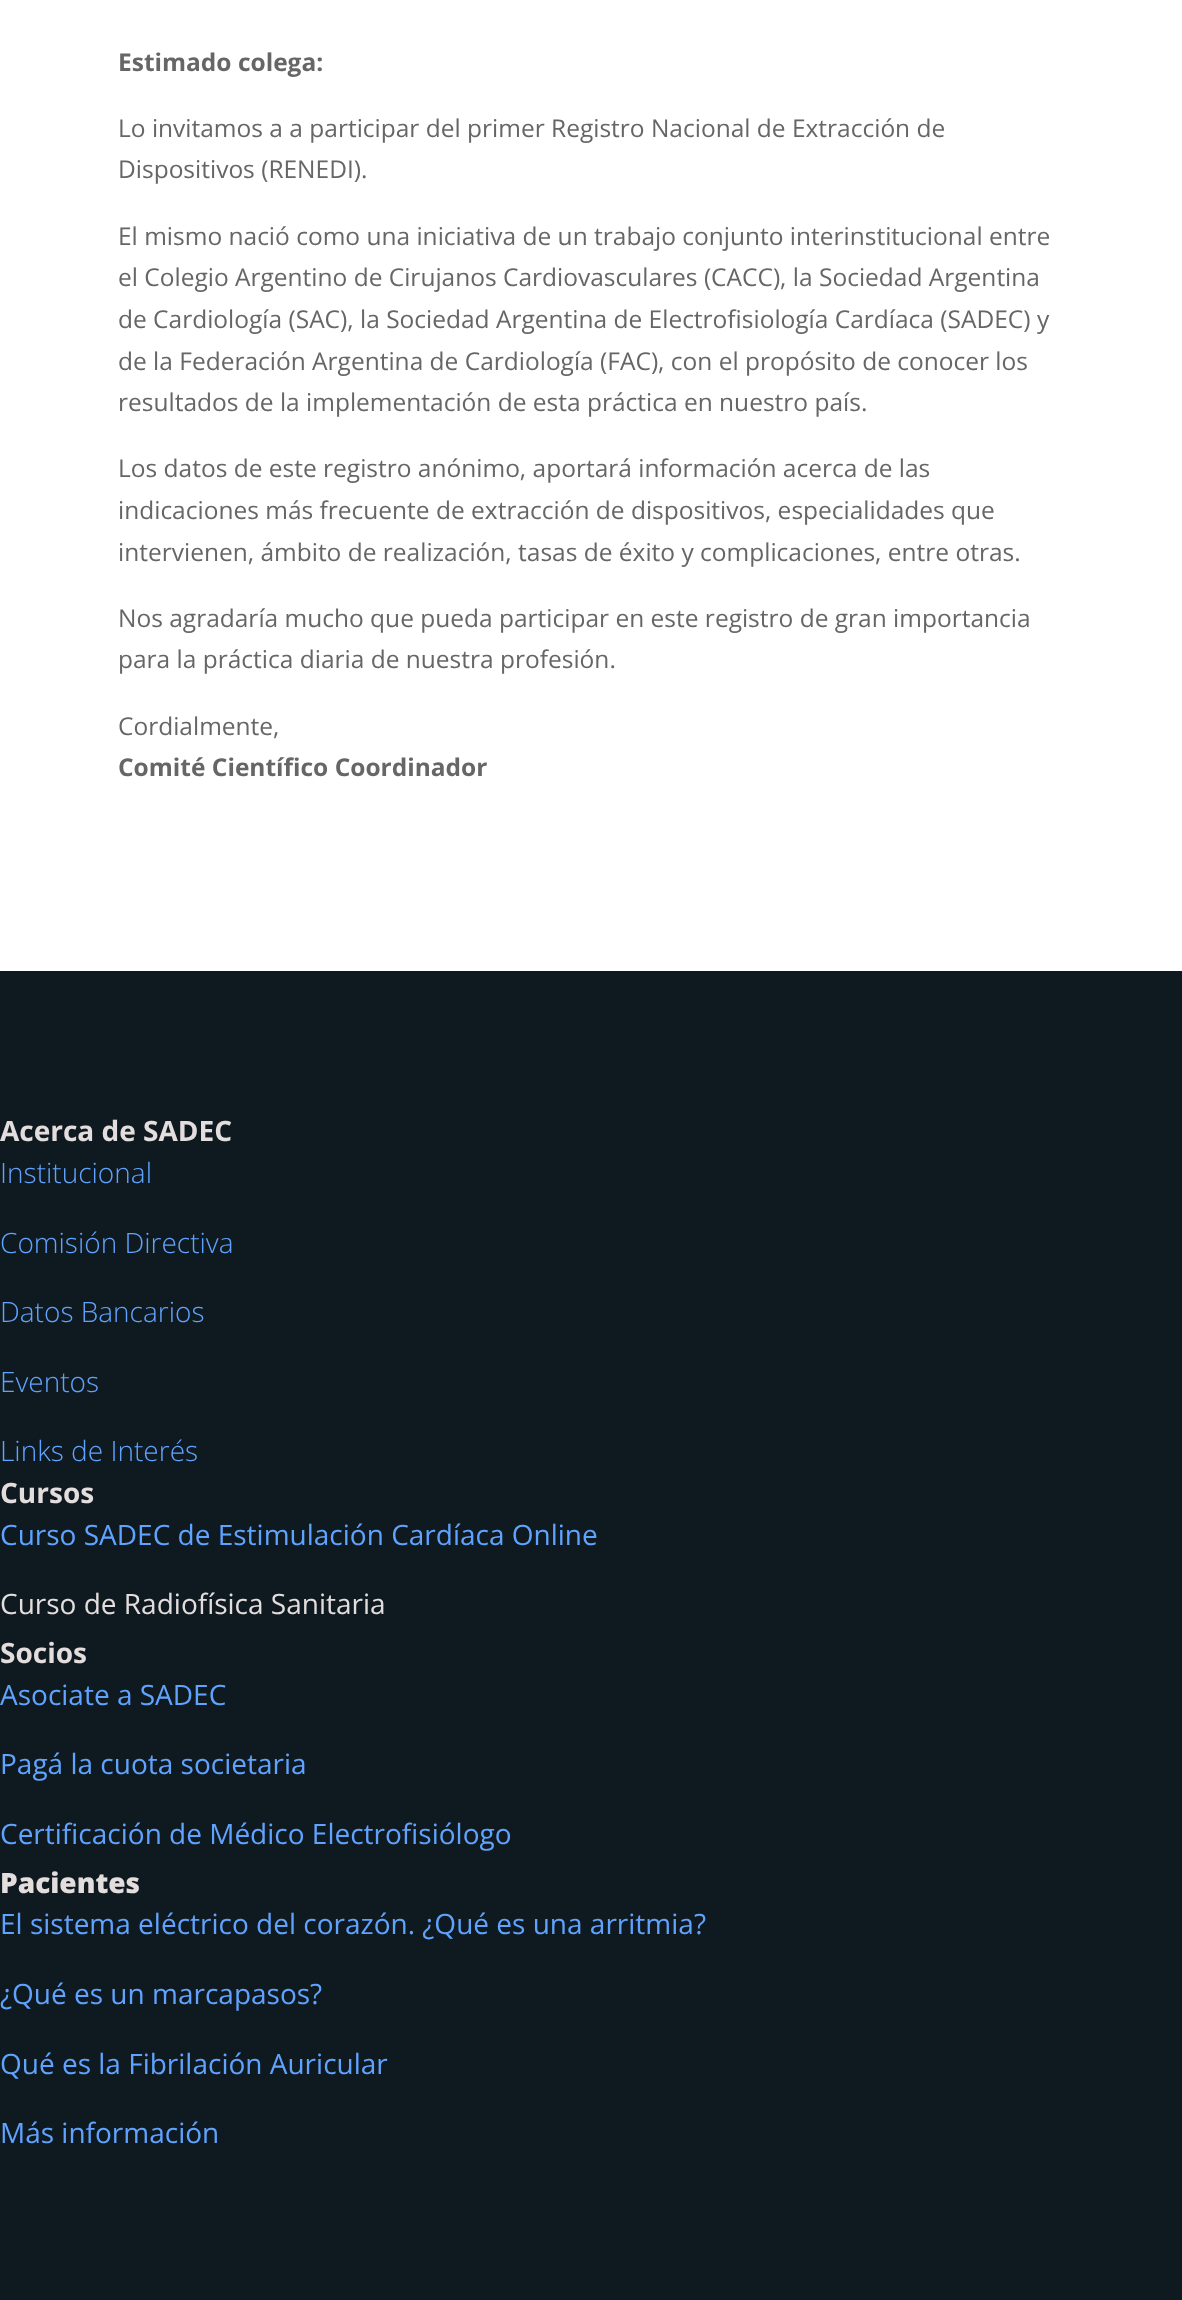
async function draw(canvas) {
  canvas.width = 1182;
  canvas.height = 2300;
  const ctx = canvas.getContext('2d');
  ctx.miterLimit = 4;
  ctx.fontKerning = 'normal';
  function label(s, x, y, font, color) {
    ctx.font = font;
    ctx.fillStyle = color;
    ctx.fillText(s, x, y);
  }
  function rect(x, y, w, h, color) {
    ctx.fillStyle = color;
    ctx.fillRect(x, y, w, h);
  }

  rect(0, 0, 1182, 2300, '#fff');
  label('Estimado colega:', 118, 71, 'bold 24.5px Open Sans', '#666');
  label('Lo invitamos a a participar del primer Registro Nacional de Extracción de', 118, 137, '24.5px Open Sans', '#666');
  label('Dispositivos (RENEDI).', 118, 178, '24.5px Open Sans', '#666');
  label('El mismo nació como una iniciativa de un trabajo conjunto interinstitucional entre', 118, 245, '24.5px Open Sans', '#666');
  label('el Colegio Argentino de Cirujanos Cardiovasculares (CACC), la Sociedad Argentina', 118, 286, '24.5px Open Sans', '#666');
  label('de Cardiología (SAC), la Sociedad Argentina de Electrofisiología Cardíaca (SADEC) y', 118, 328, '24.5px Open Sans', '#666');
  label('de la Federación Argentina de Cardiología (FAC), con el propósito de conocer los', 118, 370, '24.5px Open Sans', '#666');
  label('resultados de la implementación de esta práctica en nuestro país.', 118, 411, '24.5px Open Sans', '#666');
  label('Los datos de este registro anónimo, aportará información acerca de las', 118, 477, '24.5px Open Sans', '#666');
  label('indicaciones más frecuente de extracción de dispositivos, especialidades que', 118, 519, '24.5px Open Sans', '#666');
  label('intervienen, ámbito de realización, tasas de éxito y complicaciones, entre otras.', 118, 561, '24.5px Open Sans', '#666');
  label('Nos agradaría mucho que pueda participar en este registro de gran importancia', 118, 627, '24.5px Open Sans', '#666');
  label('para la práctica diaria de nuestra profesión.', 118, 668, '24.5px Open Sans', '#666');
  label('Cordialmente,', 118, 735, '24.5px Open Sans', '#666');
  label('Comité Científico Coordinador', 118, 776, 'bold 24.5px Open Sans', '#666');
  rect(0, 971, 1182, 1329, '#0f1a20');
  label('Acerca de SADEC', 0, 1141, 'bold 28px Open Sans', '#e4dddd');
  label('Institucional', 0, 1183, '300 28px Open Sans', '#60a3ff');
  label('Comisión Directiva', 0, 1253, '300 28px Open Sans', '#60a3ff');
  label('Datos Bancarios', 0, 1322, '300 28px Open Sans', '#60a3ff');
  label('Eventos', 0, 1392, '300 28px Open Sans', '#60a3ff');
  label('Links de Interés', 0, 1461, '300 28px Open Sans', '#60a3ff');
  label('Cursos', 0, 1503, 'bold 28px Open Sans', '#e4dddd');
  label('Curso SADEC de Estimulación Cardíaca Online', 0, 1545, '28px Open Sans', '#60a3ff');
  label('Curso de Radiofísica Sanitaria', 0, 1614, '28px Open Sans', '#e4dddd');
  label('Socios', 0, 1663, 'bold 28px Open Sans', '#e4dddd');
  label('Asociate a SADEC', 0, 1705, '28px Open Sans', '#60a3ff');
  label('Pagá la cuota societaria', 0, 1774, '28px Open Sans', '#60a3ff');
  label('Certificación de Médico Electrofisiólogo', 0, 1844, '28px Open Sans', '#60a3ff');
  label('Pacientes', 0, 1893, '800 28px Open Sans', '#e4dddd');
  label('El sistema eléctrico del corazón. ¿Qué es una arritmia?', 0, 1934, '28px Open Sans', '#60a3ff');
  label('¿Qué es un marcapasos?', 0, 2004, '28px Open Sans', '#60a3ff');
  label('Qué es la Fibrilación Auricular', 0, 2074, '28px Open Sans', '#60a3ff');
  label('Más información', 0, 2143, '28px Open Sans', '#60a3ff');
}

draw(document.querySelector('canvas'));
